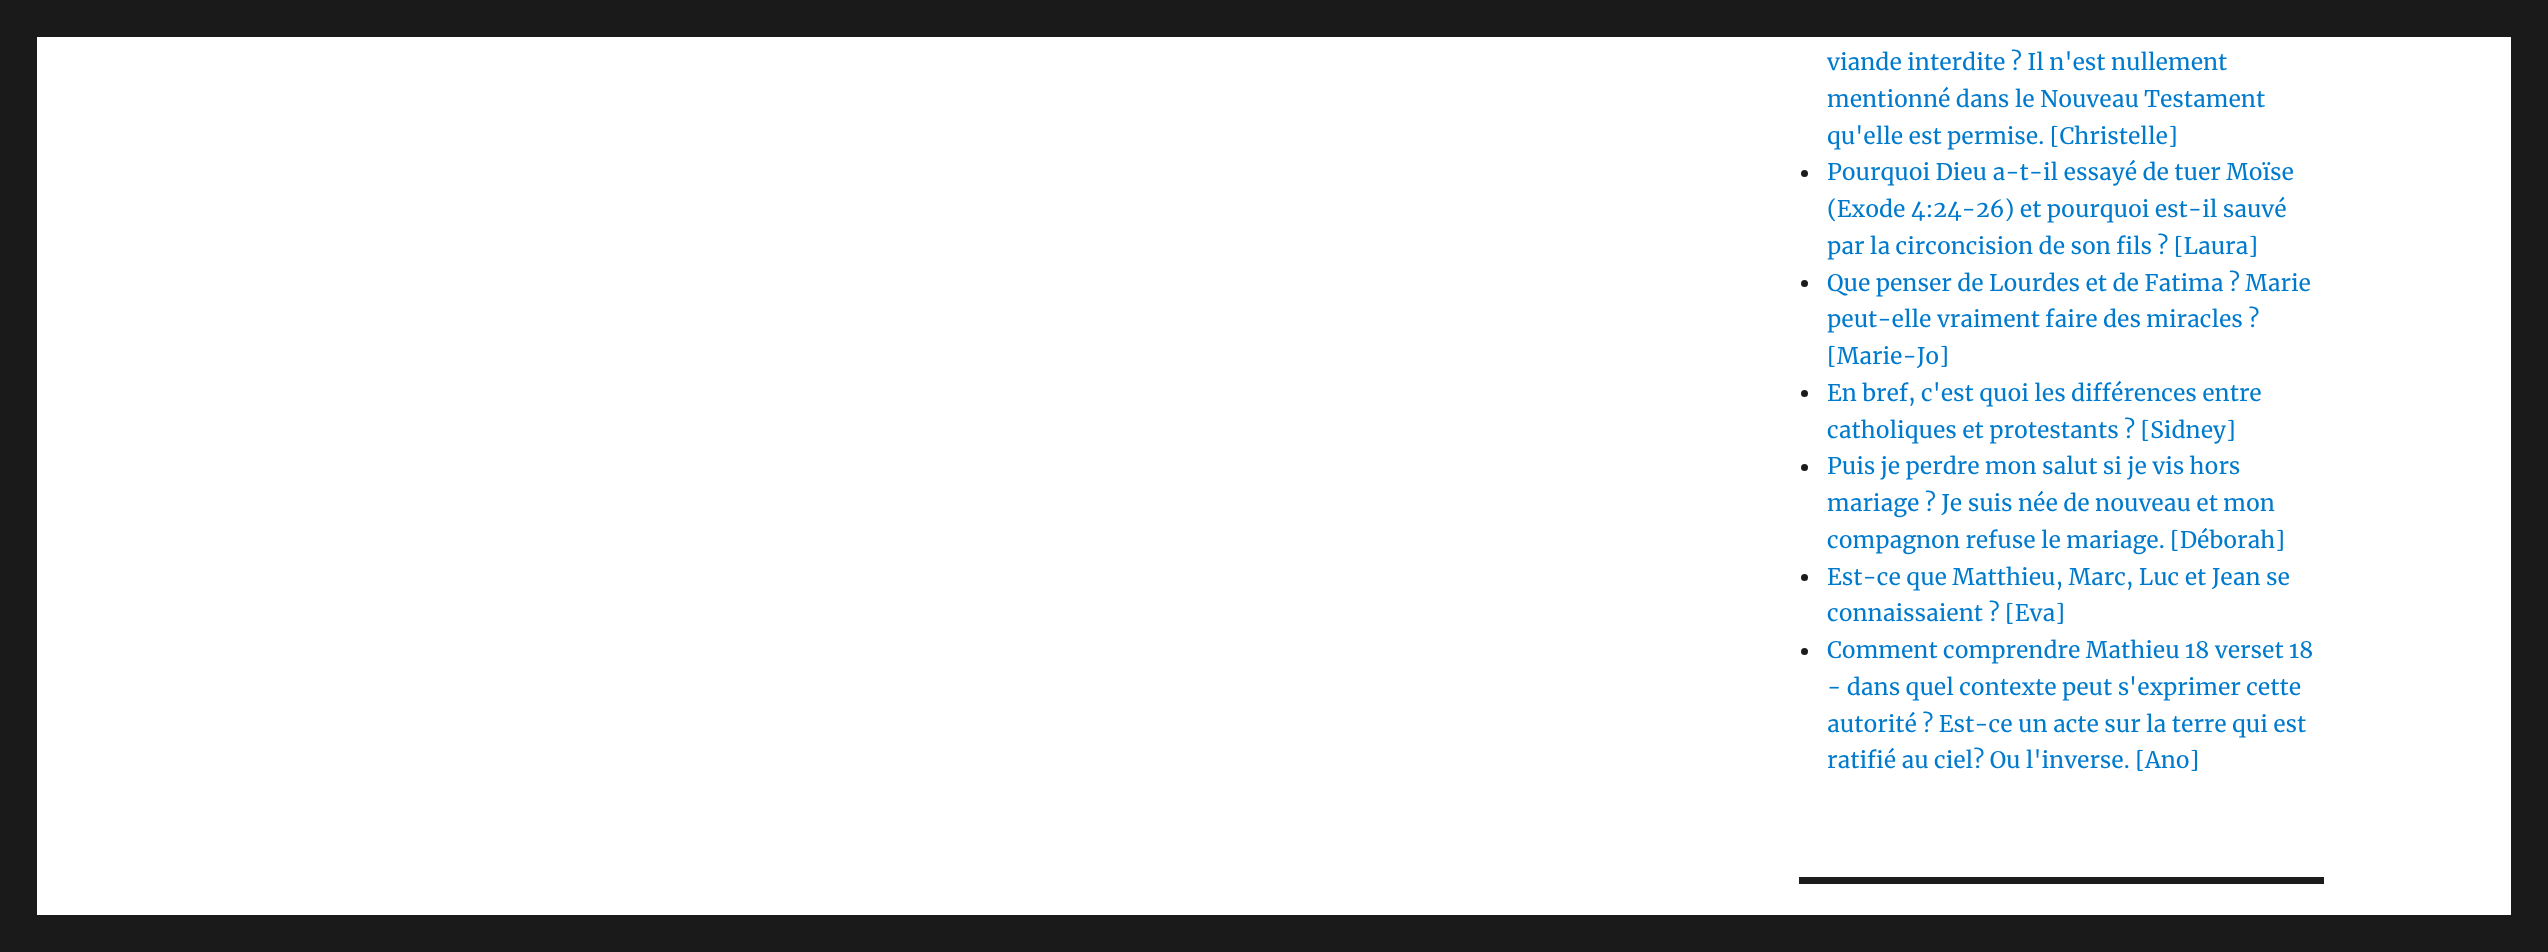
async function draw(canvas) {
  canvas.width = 2548;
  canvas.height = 952;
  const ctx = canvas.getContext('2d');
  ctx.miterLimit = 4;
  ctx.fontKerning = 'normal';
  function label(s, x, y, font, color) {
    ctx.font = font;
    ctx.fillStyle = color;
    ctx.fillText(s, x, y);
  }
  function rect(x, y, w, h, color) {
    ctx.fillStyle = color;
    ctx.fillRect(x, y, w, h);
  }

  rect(0, 0, 2548, 952, '#1a1a1a');
  rect(37, 37, 2474, 878, '#fff');
  label('viande interdite ? Il n\'est nullement', 1827, 70, '22.75px Merriweather', '#007acc');
  label('mentionné dans le Nouveau Testament', 1827, 107, '22.75px Merriweather', '#007acc');
  label('qu\'elle est permise. [Christelle]', 1827, 144, '22.75px Merriweather', '#007acc');
  ctx.fillStyle = '#1c1c1c';
  ctx.beginPath();
  ctx.arc(1804.5, 173.5, 3.5, 0, 2 * Math.PI);
  ctx.fill();
  label('Pourquoi Dieu a-t-il essayé de tuer Moïse', 1827, 180, '22.75px Merriweather', '#007acc');
  label('(Exode 4:24-26) et pourquoi est-il sauvé', 1827, 217, '22.75px Merriweather', '#007acc');
  label('par la circoncision de son fils ? [Laura]', 1827, 254, '22.75px Merriweather', '#007acc');
  ctx.fillStyle = '#1c1c1c';
  ctx.beginPath();
  ctx.arc(1804.5, 283.5, 3.5, 0, 2 * Math.PI);
  ctx.fill();
  label('Que penser de Lourdes et de Fatima ? Marie', 1827, 291, '22.75px Merriweather', '#007acc');
  label('peut-elle vraiment faire des miracles ?', 1827, 327, '22.75px Merriweather', '#007acc');
  label('[Marie-Jo]', 1827, 364, '22.75px Merriweather', '#007acc');
  ctx.fillStyle = '#1c1c1c';
  ctx.beginPath();
  ctx.arc(1804.5, 393.5, 3.5, 0, 2 * Math.PI);
  ctx.fill();
  label('En bref, c\'est quoi les différences entre', 1827, 401, '22.75px Merriweather', '#007acc');
  label('catholiques et protestants ? [Sidney]', 1827, 438, '22.75px Merriweather', '#007acc');
  ctx.fillStyle = '#1c1c1c';
  ctx.beginPath();
  ctx.arc(1804.5, 467.5, 3.5, 0, 2 * Math.PI);
  ctx.fill();
  label('Puis je perdre mon salut si je vis hors', 1827, 474, '22.75px Merriweather', '#007acc');
  label('mariage ? Je suis née de nouveau et mon', 1827, 511, '22.75px Merriweather', '#007acc');
  label('compagnon refuse le mariage. [Déborah]', 1827, 548, '22.75px Merriweather', '#007acc');
  ctx.fillStyle = '#1c1c1c';
  ctx.beginPath();
  ctx.arc(1804.5, 577.5, 3.5, 0, 2 * Math.PI);
  ctx.fill();
  label('Est-ce que Matthieu, Marc, Luc et Jean se', 1827, 585, '22.75px Merriweather', '#007acc');
  label('connaissaient ? [Eva]', 1827, 621, '22.75px Merriweather', '#007acc');
  ctx.fillStyle = '#1c1c1c';
  ctx.beginPath();
  ctx.arc(1804.5, 651.5, 3.5, 0, 2 * Math.PI);
  ctx.fill();
  label('Comment comprendre Mathieu 18 verset 18', 1827, 658, '22.75px Merriweather', '#007acc');
  label('- dans quel contexte peut s\'exprimer cette', 1827, 695, '22.75px Merriweather', '#007acc');
  label('autorité ? Est-ce un acte sur la terre qui est', 1827, 732, '22.75px Merriweather', '#007acc');
  label('ratifié au ciel? Ou l\'inverse. [Ano]', 1827, 768, '22.75px Merriweather', '#007acc');
  rect(1799, 877, 525, 7, '#1c1c1c');
}

draw(document.querySelector('canvas'));
